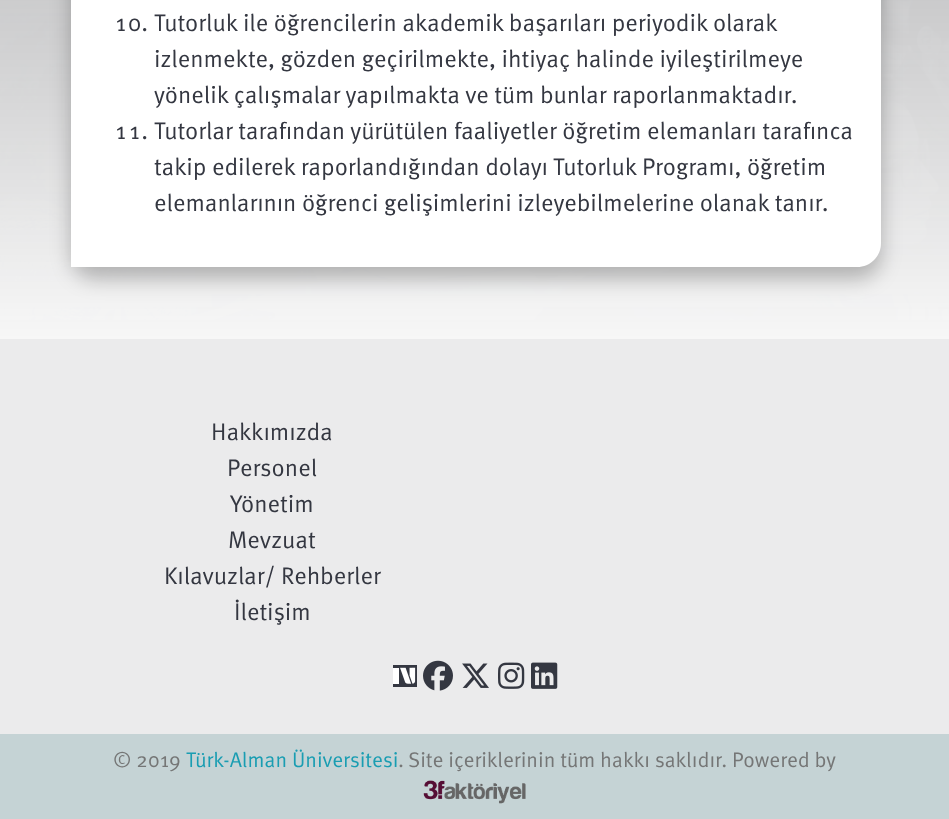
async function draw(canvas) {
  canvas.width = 949;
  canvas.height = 819;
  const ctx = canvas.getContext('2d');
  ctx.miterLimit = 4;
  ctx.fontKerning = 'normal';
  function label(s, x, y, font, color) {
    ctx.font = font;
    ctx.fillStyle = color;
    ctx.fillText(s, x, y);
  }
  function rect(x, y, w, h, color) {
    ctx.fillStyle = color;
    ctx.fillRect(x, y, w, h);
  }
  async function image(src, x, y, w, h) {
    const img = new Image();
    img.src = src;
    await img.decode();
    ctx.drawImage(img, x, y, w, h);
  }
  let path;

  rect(0, 0, 949, 819, '#ebebec');
  await image('assets/img1.png', 0, 0, 949, 339);
  ctx.fillStyle = '#00000040';
  ctx.filter = 'blur(10px)';
  ctx.beginPath();
  ctx.roundRect(71, -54, 810, 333, 24);
  ctx.fill();
  ctx.filter = 'none';
  ctx.fillStyle = '#fff';
  path = new Path2D('M95-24H881V243C881 256.5 870.5 267 857 267H71V0C71-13.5 81.5-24 95-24Z');
  ctx.fill(path);
  label('10.', 114, 31, '24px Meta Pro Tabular', '#343741');
  label('Tutorluk ile öğrencilerin akademik başarıları periyodik olarak', 154, 31, '24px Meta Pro', '#343741');
  label('izlenmekte, gözden geçirilmekte, ihtiyaç halinde iyileştirilmeye', 154, 67, '24px Meta Pro', '#343741');
  label('yönelik çalışmalar yapılmakta ve tüm bunlar raporlanmaktadır.', 154, 103, '24px Meta Pro', '#343741');
  label('11.', 114, 139, '24px Meta Pro Tabular', '#343741');
  label('Tutorlar tarafından yürütülen faaliyetler öğretim elemanları tarafınca', 154, 139, '24px Meta Pro', '#343741');
  label('takip edilerek raporlandığından dolayı Tutorluk Programı, öğretim', 154, 175, '24px Meta Pro', '#343741');
  label('elemanlarının öğrenci gelişimlerini izleyebilmelerine olanak tanır.', 154, 211, '24px Meta Pro', '#343741');
  label('Hakkımızda', 211, 440, '24px Meta Pro', '#343741');
  label('Personel', 227, 476, '24px Meta Pro', '#343741');
  label('Yönetim', 230, 512, '24px Meta Pro', '#343741');
  label('Mevzuat', 228, 548, '24px Meta Pro', '#343741');
  label('Kılavuzlar/ Rehberler', 164, 584, '24px Meta Pro', '#343741');
  label('İletişim', 234, 620, '24px Meta Pro', '#343741');
  rect(393, 665, 24, 22, '#343741');
  await image('assets/img2.png', 393, 667, 23, 17);
  await image('assets/img3.png', 423, 660, 30, 31);
  await image('assets/img4.png', 462, 663, 27, 25);
  await image('assets/img5.png', 498, 662, 27, 27);
  await image('assets/img6.png', 531, 662, 27, 27);
  rect(0, 734, 949, 85, '#c5d3d5');
  label('© 2019', 113, 767, '21px Meta Pro', '#757676');
  label('Türk-Alman Üniversitesi', 186, 767, '21px Meta Pro', '#199db2');
  label('.', 398, 767, '21px Meta Pro', '#757676');
  label('Site içeriklerinin tüm hakkı saklıdır. Powered by', 408, 767, '21px Meta Pro', '#757676');
  await image('assets/img7.png', 423, 780, 103, 24);
}

draw(document.querySelector('canvas'));
